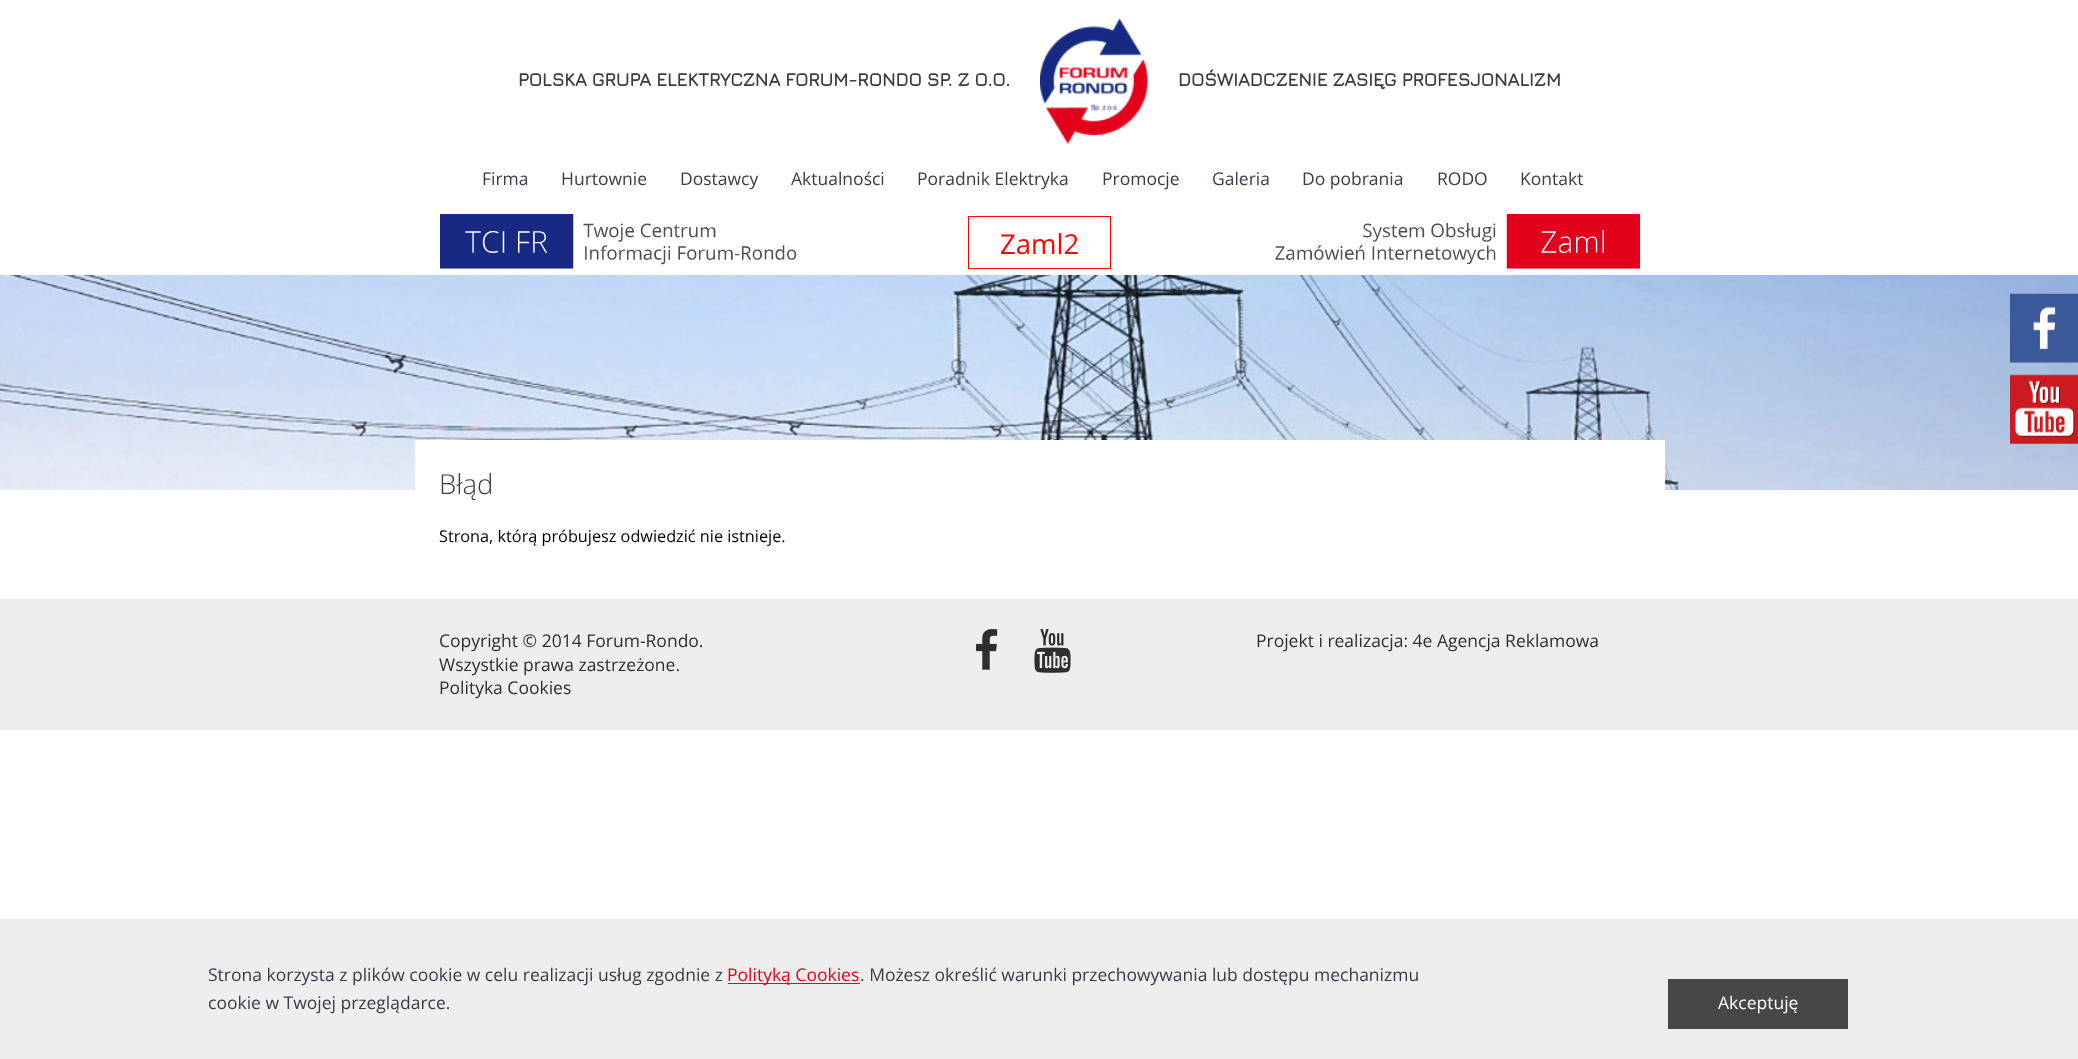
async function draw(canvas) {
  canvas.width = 2078;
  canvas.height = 1059;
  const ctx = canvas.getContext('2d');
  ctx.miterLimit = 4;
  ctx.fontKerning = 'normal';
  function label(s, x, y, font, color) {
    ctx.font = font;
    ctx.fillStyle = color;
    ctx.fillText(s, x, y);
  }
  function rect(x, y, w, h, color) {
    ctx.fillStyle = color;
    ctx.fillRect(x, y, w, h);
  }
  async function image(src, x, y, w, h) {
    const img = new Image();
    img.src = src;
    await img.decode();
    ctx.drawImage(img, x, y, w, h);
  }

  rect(0, 0, 2078, 1059, '#fff');
  label('POLSKA GRUPA ELEKTRYCZNA FORUM-RONDO SP. Z O.O.', 518, 86, 'bold 18.75px Jura', '#383c48');
  await image('assets/img1.png', 1040, 18, 108, 126);
  label('DOŚWIADCZENIE ZASIĘG PROFESJONALIZM', 1178, 86, 'bold 18.75px Jura', '#383c48');
  label('Firma', 482, 185, '17.5px Open Sans', '#383c48');
  label('Hurtownie', 561, 185, '17.5px Open Sans', '#383c48');
  label('Dostawcy', 680, 185, '17.5px Open Sans', '#383c48');
  label('Aktualności', 791, 185, '17.5px Open Sans', '#383c48');
  label('Poradnik Elektryka', 917, 185, '17.5px Open Sans', '#383c48');
  label('Promocje', 1102, 185, '17.5px Open Sans', '#383c48');
  label('Galeria', 1212, 185, '17.5px Open Sans', '#383c48');
  label('Do pobrania', 1302, 185, '17.5px Open Sans', '#383c48');
  label('RODO', 1437, 185, '17.5px Open Sans', '#383c48');
  label('Kontakt', 1520, 185, '17.5px Open Sans', '#383c48');
  await image('assets/img2.png', 440, 214, 357, 55);
  ctx.strokeStyle = '#f00';
  ctx.strokeRect(968.5, 216.5, 142, 52);
  label('Zaml2', 1000, 254, '27.5px Open Sans', '#f00');
  await image('assets/img3.png', 1275, 214, 365, 55);
  await image('assets/img4.png', 0, 275, 2078, 215);
  await image('assets/img5.png', 2010, 293, 68, 70);
  await image('assets/img6.png', 2010, 374, 68, 70);
  rect(415, 440, 1250, 50, '#fff');
  label('Błąd', 439, 494, '300 27.5px Open Sans', '#383c48');
  label('Strona, którą próbujesz odwiedzić nie istnieje.', 439, 542, '16.25px Open Sans', '#000');
  rect(0, 599, 2078, 131, '#eee');
  label('Copyright © 2014 Forum-Rondo.', 439, 647, '17.5px Open Sans', '#2e2e2e');
  label('Wszystkie prawa zastrzeżone.', 439, 671, '17.5px Open Sans', '#2e2e2e');
  label('Polityka Cookies', 439, 694, '17.5px Open Sans', '#2e2e2e');
  await image('assets/img7.png', 976, 629, 22, 41);
  await image('assets/img8.png', 1034, 629, 37, 44);
  label('Projekt i realizacja: 4e Agencja Reklamowa', 1256, 647, '17.5px Open Sans', '#2e2e2e');
  rect(0, 919, 2078, 140, '#eee');
  label('Strona korzysta z plików cookie w celu realizacji usług zgodnie z', 208, 981, '17.5px Open Sans', '#383c48');
  rect(728, 983, 132, 1, '#e2001a');
  label('Polityką Cookies', 727, 981, '17.5px Open Sans', '#e2001a');
  label('. Możesz określić warunki przechowywania lub dostępu mechanizmu', 860, 981, '17.5px Open Sans', '#383c48');
  label('cookie w Twojej przeglądarce.', 208, 1009, '17.5px Open Sans', '#383c48');
  rect(1668, 979, 180, 50, '#474747');
  label('Akceptuję', 1718, 1009, '17.5px Open Sans', '#fff');
}

draw(document.querySelector('canvas'));
